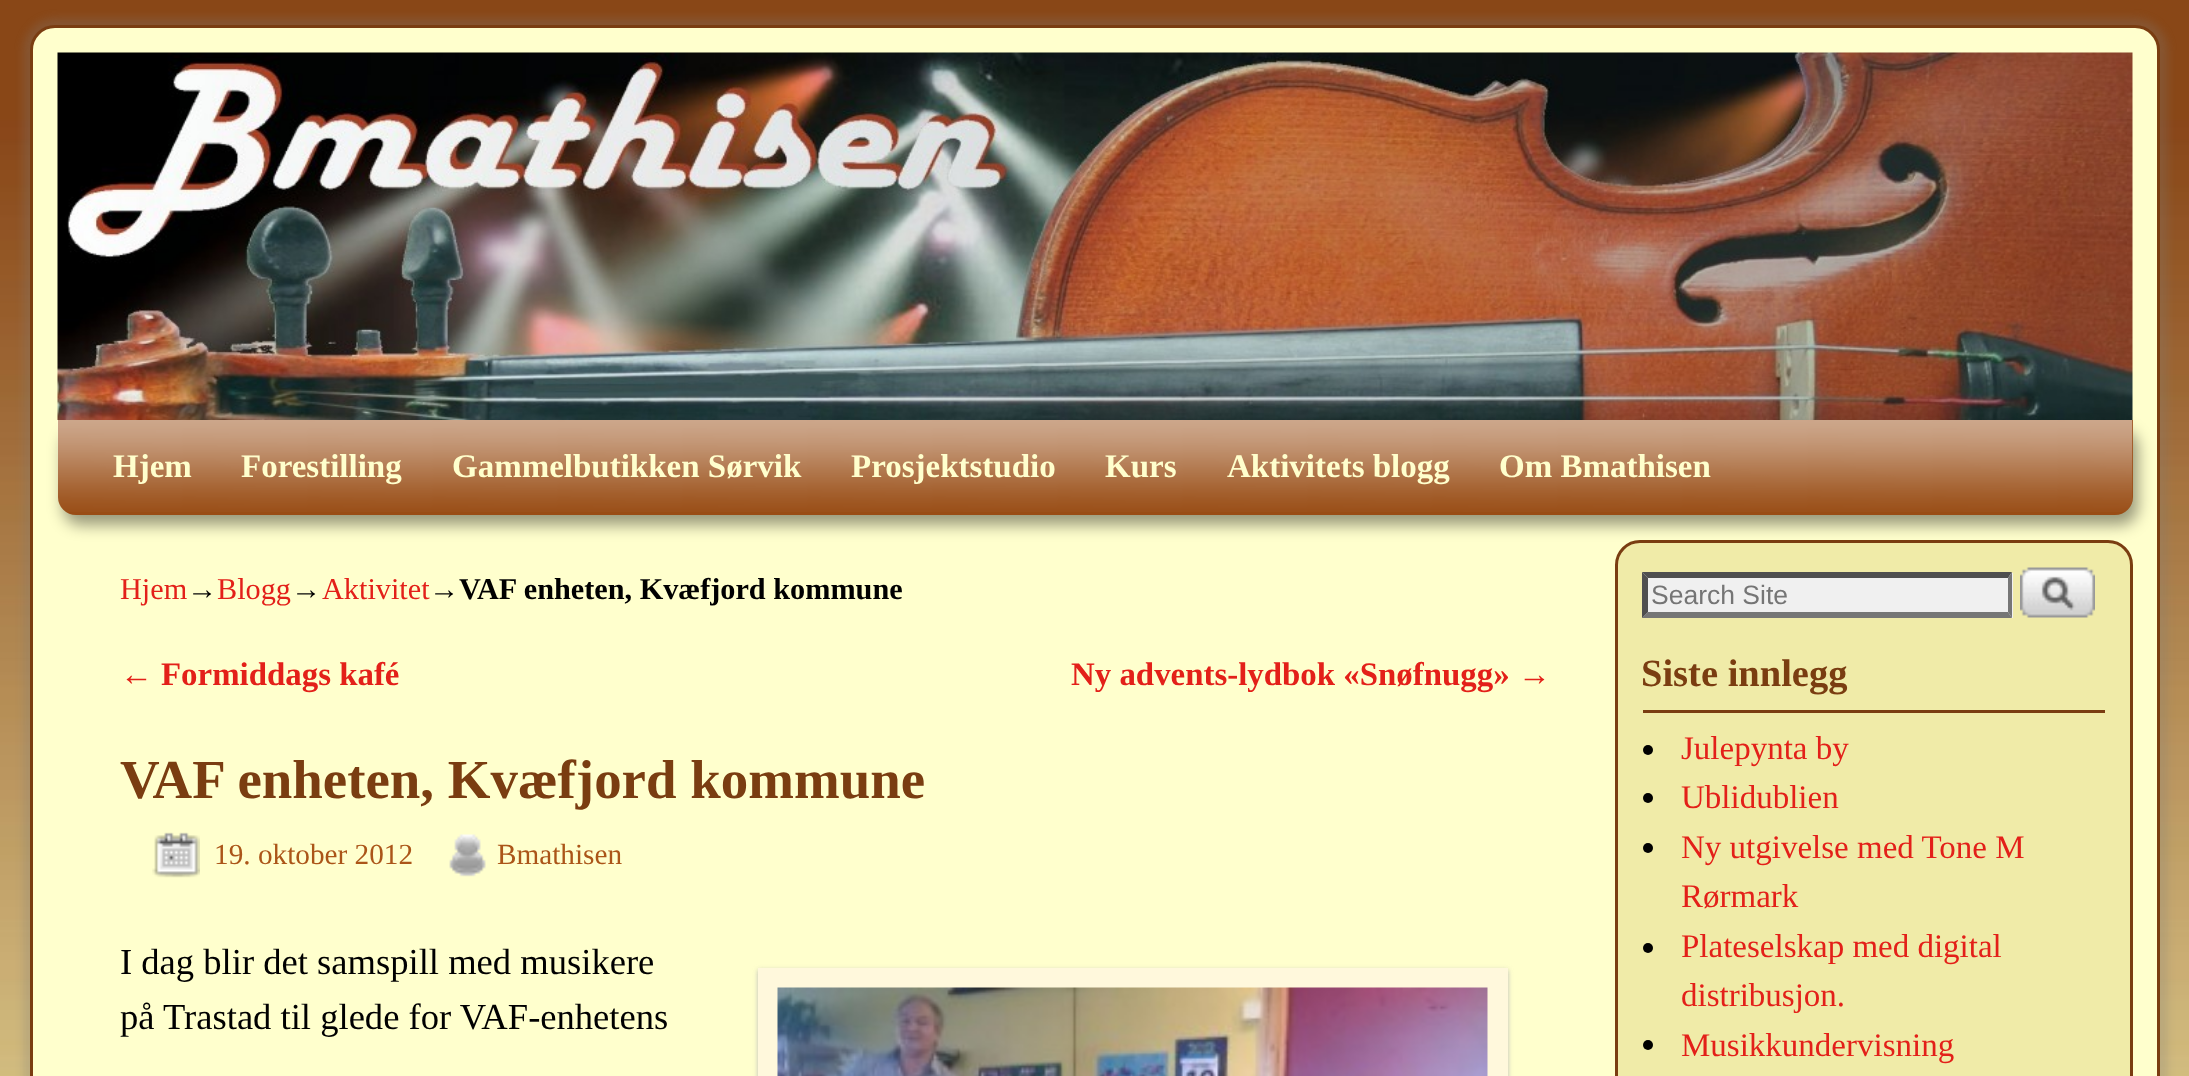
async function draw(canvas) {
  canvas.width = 2189;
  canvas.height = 1076;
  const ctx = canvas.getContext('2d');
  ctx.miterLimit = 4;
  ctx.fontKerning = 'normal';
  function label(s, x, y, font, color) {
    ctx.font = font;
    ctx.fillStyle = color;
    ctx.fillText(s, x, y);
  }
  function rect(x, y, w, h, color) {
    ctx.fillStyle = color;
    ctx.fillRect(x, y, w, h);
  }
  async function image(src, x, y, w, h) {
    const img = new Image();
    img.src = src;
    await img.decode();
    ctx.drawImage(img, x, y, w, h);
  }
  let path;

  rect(0, 0, 2189, 1076, '#fff');
  await image('assets/img1.png', 0, 0, 2189, 1076);
  ctx.fillStyle = '#7f7f7f40';
  ctx.filter = 'blur(4px)';
  ctx.beginPath();
  ctx.roundRect(23, 18, 2145, 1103, 33);
  ctx.fill();
  ctx.filter = 'none';
  ctx.fillStyle = '#ffffcd';
  ctx.beginPath();
  ctx.roundRect(31.5, 26.5, 2127, 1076, 23.5);
  ctx.fill();
  ctx.strokeStyle = '#7a3d11';
  ctx.lineWidth = 3;
  ctx.stroke();
  await image('assets/img2.png', 57, 52, 2076, 368);
  ctx.fillStyle = '#f0eba8';
  ctx.beginPath();
  ctx.roundRect(1616.5, 541.5, 515, 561, 23.5);
  ctx.fill();
  ctx.stroke();
  ctx.fillStyle = '#00000066';
  ctx.filter = 'blur(7.5px)';
  ctx.beginPath();
  ctx.roundRect(63, 430, 2075, 95, 18);
  ctx.fill();
  ctx.filter = 'none';
  ctx.fillStyle = '#994d15';
  ctx.beginPath();
  ctx.roundRect(58, 420, 2075, 95, [0, 0, 18, 18]);
  ctx.fill();
  await image('assets/img3.png', 57, 420, 2076, 92);
  label('Hjem', 113, 477, 'bold 33px Liberation Serif', '#ffffcd');
  label('Forestilling', 241, 477, 'bold 33px Liberation Serif', '#ffffcd');
  label('Gammelbutikken Sørvik', 452, 477, 'bold 33px Liberation Serif', '#ffffcd');
  label('Prosjektstudio', 851, 477, 'bold 33px Liberation Serif', '#ffffcd');
  label('Kurs', 1105, 477, 'bold 33px Liberation Serif', '#ffffcd');
  label('Aktivitets blogg', 1227, 477, 'bold 33px Liberation Serif', '#ffffcd');
  label('Om Bmathisen', 1499, 477, 'bold 33px Liberation Serif', '#ffffcd');
  label('Hjem', 120, 599, '30.25px Liberation Serif', '#e32019');
  label('→', 187, 599, '30.25px Liberation Serif', '#000');
  label('Blogg', 217, 599, '30.25px Liberation Serif', '#e32019');
  label('→', 291, 599, '30.25px Liberation Serif', '#000');
  label('Aktivitet', 322, 599, '30.25px Liberation Serif', '#e32019');
  label('→', 429, 599, '30.25px Liberation Serif', '#000');
  label('VAF enheten, Kvæfjord kommune', 459, 599, 'bold 30.25px Liberation Serif', '#000');
  label('←', 120, 685, '32.9px Liberation Serif', '#e32019');
  label('Formiddags kafé', 161, 685, 'bold 32.9px Liberation Serif', '#e32019');
  label('Ny advents-lydbok «Snøfnugg»', 1071, 685, 'bold 32.9px Liberation Serif', '#e32019');
  label('→', 1518, 685, '32.9px Liberation Serif', '#e32019');
  label('VAF enheten, Kvæfjord kommune', 120, 798, 'bold 54.9px Liberation Serif', '#7a3d11');
  await image('assets/img4.png', 152, 832, 48, 46);
  label('19. oktober 2012', 214, 864, '29.25px Liberation Serif', '#ab5518');
  await image('assets/img5.png', 449, 834, 37, 43);
  label('Bmathisen', 497, 864, '29.25px Liberation Serif', '#ab5518');
  label('I dag blir det samspill med musikere', 120, 974, '36.6px Liberation Serif', '#000');
  label('på Trastad til glede for VAF-enhetens', 120, 1029, '36.6px Liberation Serif', '#000');
  ctx.fillStyle = '#bbb';
  ctx.filter = 'blur(2.5px)';
  ctx.beginPath();
  ctx.rect(758, 970, 750, 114);
  ctx.fill();
  ctx.filter = 'none';
  rect(758, 968, 750, 108, '#fff8dc');
  await image('assets/img6.png', 777, 987, 711, 89);
  rect(1643, 573, 370, 45, '#f0f0f0');
  ctx.fillStyle = '#4f4f4f';
  path = new Path2D('M1642 572H2012L2008 578H1648Z');
  ctx.fill(path);
  ctx.fillStyle = '#767676';
  path = new Path2D('M2012 572V618L2008 612V578Z');
  ctx.fill(path);
  path = new Path2D('M2012 618H1642L1648 612H2008Z');
  ctx.fill(path);
  ctx.fillStyle = '#4f4f4f';
  path = new Path2D('M1642 618V572L1648 578V612Z');
  ctx.fill(path);
  label('Search Site', 1651, 604, '26.5px Liberation Sans', '#757575');
  await image('assets/img7.png', 2020, 567, 75, 51);
  rect(1643, 710, 462, 3, '#7a3d11');
  label('Siste innlegg', 1641, 686, 'bold 38.5px Liberation Serif', '#7a3d11');
  ctx.fillStyle = '#000';
  ctx.beginPath();
  ctx.arc(1648, 750, 5, 0, 2 * Math.PI);
  ctx.fill();
  label('Julepynta by', 1681, 759, '33px Liberation Serif', '#e32019');
  ctx.fillStyle = '#000';
  ctx.beginPath();
  ctx.arc(1648, 798, 5, 0, 2 * Math.PI);
  ctx.fill();
  label('Ublidublien', 1681, 808, '33px Liberation Serif', '#e32019');
  ctx.fillStyle = '#000';
  ctx.beginPath();
  ctx.arc(1648, 848, 5, 0, 2 * Math.PI);
  ctx.fill();
  label('Ny utgivelse med Tone M', 1681, 858, '33px Liberation Serif', '#e32019');
  label('Rørmark', 1681, 907, '33px Liberation Serif', '#e32019');
  ctx.fillStyle = '#000';
  ctx.beginPath();
  ctx.arc(1648, 948, 5, 0, 2 * Math.PI);
  ctx.fill();
  label('Plateselskap med digital', 1681, 957, '33px Liberation Serif', '#e32019');
  label('distribusjon.', 1681, 1006, '33px Liberation Serif', '#e32019');
  ctx.fillStyle = '#000';
  ctx.beginPath();
  ctx.arc(1648, 1045, 5, 0, 2 * Math.PI);
  ctx.fill();
  label('Musikkundervisning', 1681, 1056, '33px Liberation Serif', '#e32019');
}

draw(document.querySelector('canvas'));
